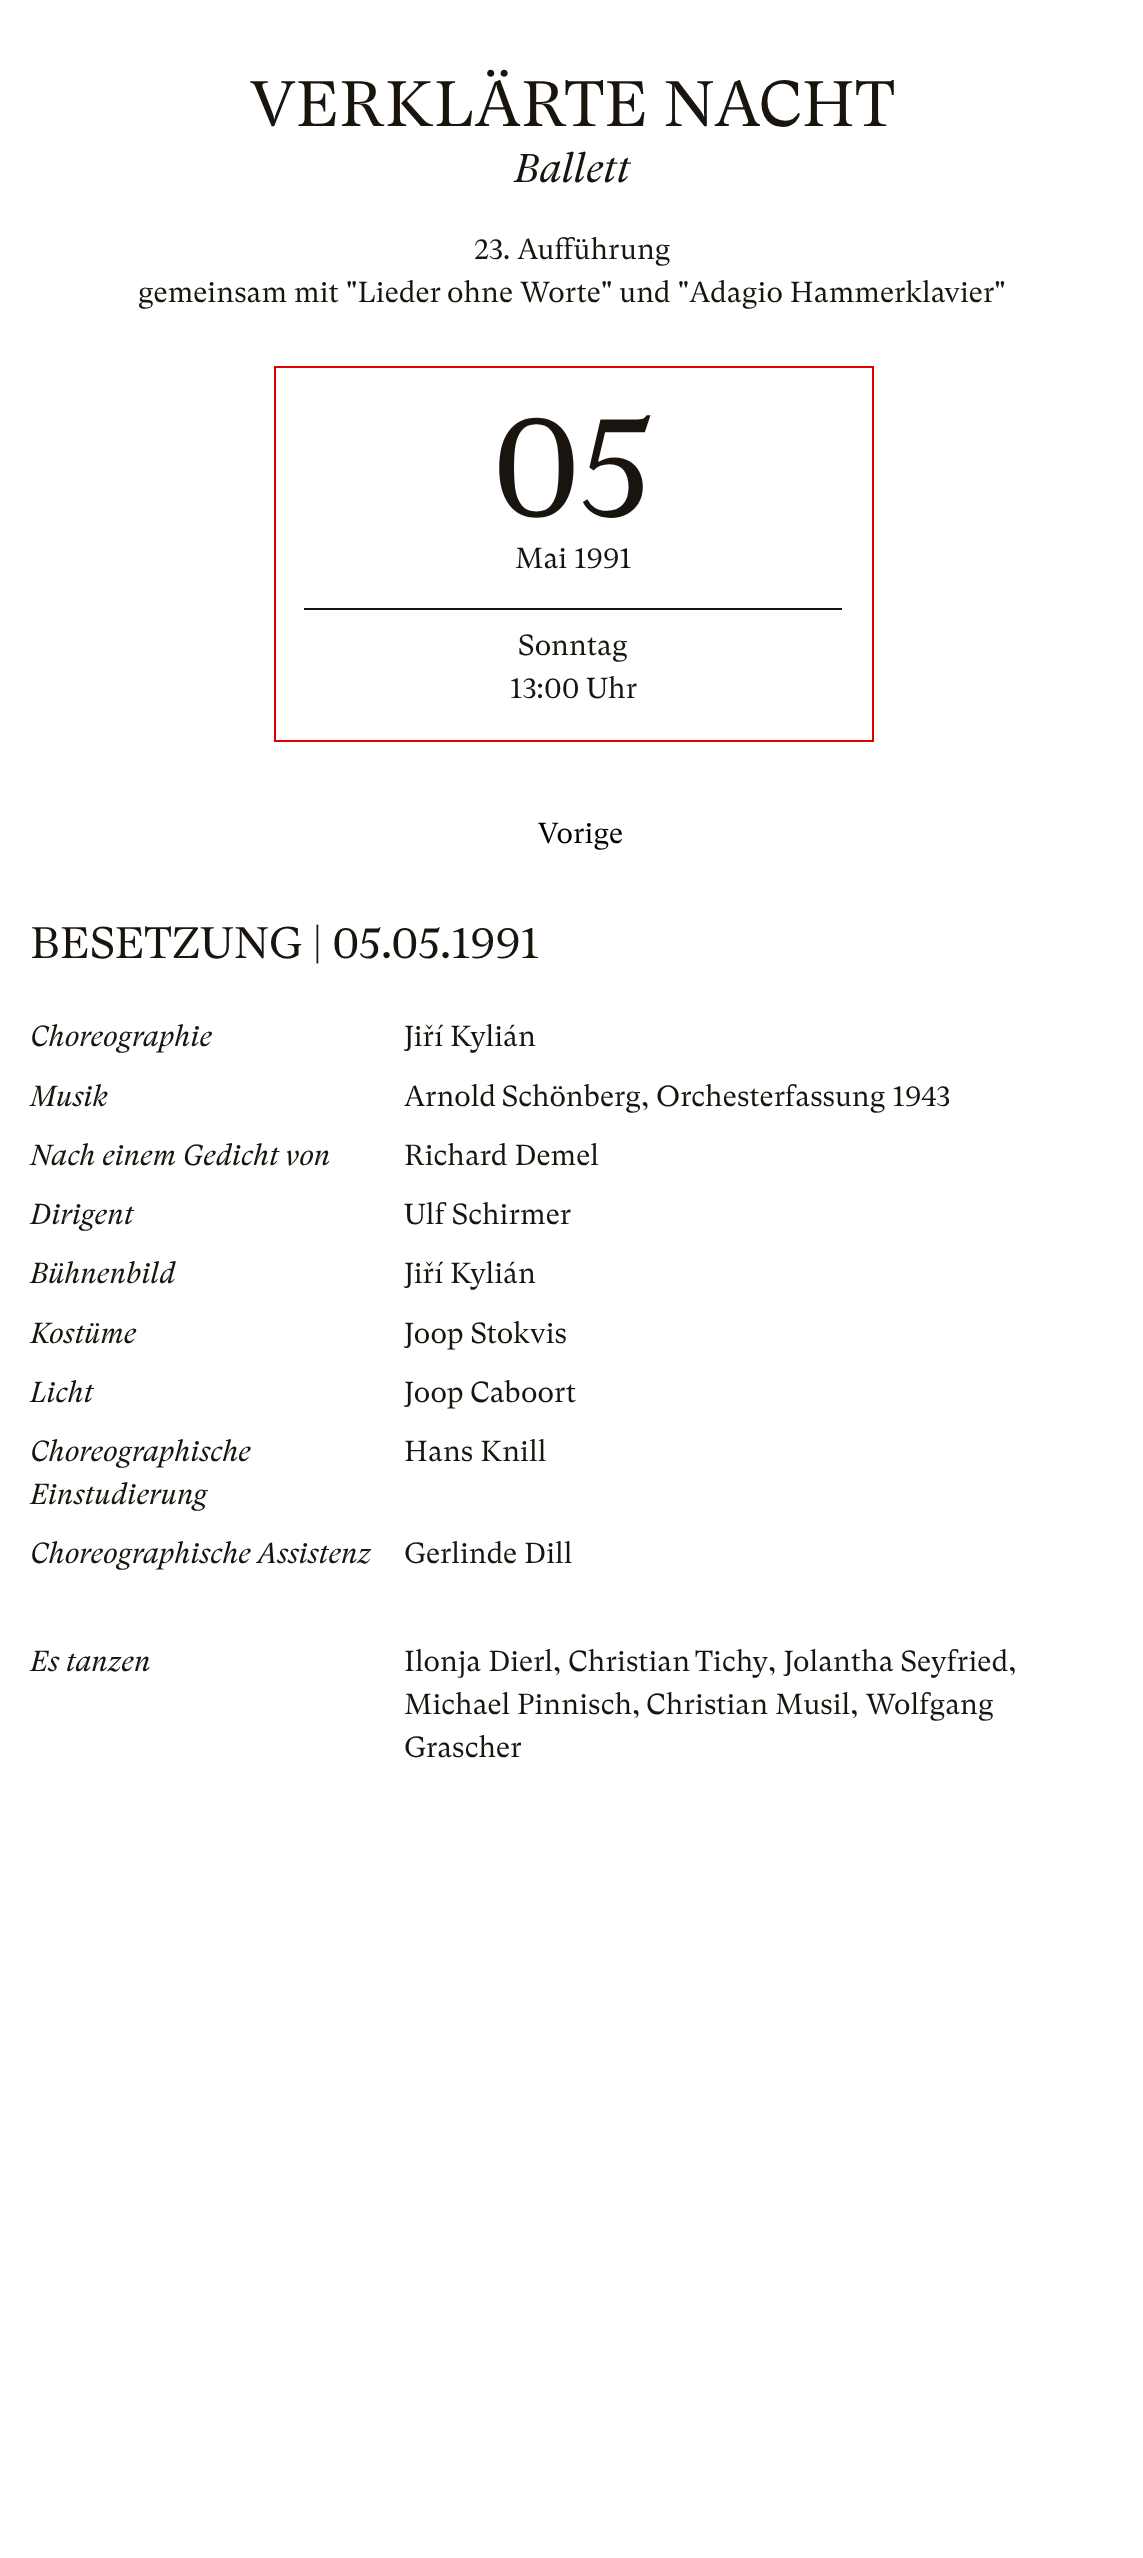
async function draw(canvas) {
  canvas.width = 1143;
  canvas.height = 2558;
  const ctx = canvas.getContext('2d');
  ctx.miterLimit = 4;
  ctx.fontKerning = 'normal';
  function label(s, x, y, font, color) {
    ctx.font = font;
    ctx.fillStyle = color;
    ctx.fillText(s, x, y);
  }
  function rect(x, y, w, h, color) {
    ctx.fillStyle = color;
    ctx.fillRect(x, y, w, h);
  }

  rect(0, 0, 1143, 2558, '#fff');
  label('VERKLÄRTE NACHT', 250, 126, '64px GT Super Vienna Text', '#19140e');
  label('Ballett', 514, 182, 'italic 40px GT Super Vienna Text', '#19140e');
  label('23. Aufführung', 474, 259, '28.8px GT Super Vienna Text', '#19140e');
  label('gemeinsam mit "Lieder ohne Worte" und "Adagio Hammerklavier"', 138, 302, '28.8px GT Super Vienna Text', '#19140e');
  ctx.strokeStyle = '#de0000';
  ctx.lineWidth = 2;
  ctx.strokeRect(275, 367, 598, 374);
  label('05', 492, 516, '144px GT Super Vienna Text', '#19140e');
  rect(304, 608, 538, 2, '#19140e');
  label('Mai 1991', 515, 568, '28.8px GT Super Vienna Text', '#19140e');
  label('Sonntag', 518, 655, '28.8px GT Super Vienna Text', '#19140e');
  label('13:00 Uhr', 510, 698, '28.8px GT Super Vienna Text', '#19140e');
  label('Vorige', 538, 843, '28.8px GT Super Vienna Text', '#000');
  label('BESETZUNG | 05.05.1991', 30, 958, '44px GT Super Vienna Text', '#19140e');
  label('Choreographie', 30, 1046, 'italic 28.8px GT Super Vienna Text', '#19140e');
  label('Jiří Kylián', 404, 1046, '28.8px GT Super Vienna Text', '#19140e');
  label('Musik', 30, 1106, 'italic 28.8px GT Super Vienna Text', '#19140e');
  ctx.wordSpacing = '-1px';
  label('Arnold Schönberg', 404, 1106, '28.8px GT Super Vienna Text', '#19140e');
  ctx.wordSpacing = '0px';
  label(',', 641, 1106, '28.8px GT Super Vienna Text', '#19140e');
  label('Orchesterfassung 1943', 656, 1106, '28.8px GT Super Vienna Text', '#19140e');
  label('Nach einem Gedicht von', 30, 1165, 'italic 28.8px GT Super Vienna Text', '#19140e');
  label('Richard Demel', 404, 1165, '28.8px GT Super Vienna Text', '#19140e');
  label('Dirigent', 30, 1224, 'italic 28.8px GT Super Vienna Text', '#19140e');
  label('Ulf Schirmer', 404, 1224, '28.8px GT Super Vienna Text', '#19140e');
  label('Bühnenbild', 30, 1283, 'italic 28.8px GT Super Vienna Text', '#19140e');
  label('Jiří Kylián', 404, 1283, '28.8px GT Super Vienna Text', '#19140e');
  label('Kostüme', 30, 1343, 'italic 28.8px GT Super Vienna Text', '#19140e');
  label('Joop Stokvis', 404, 1343, '28.8px GT Super Vienna Text', '#19140e');
  label('Licht', 30, 1402, 'italic 28.8px GT Super Vienna Text', '#19140e');
  label('Joop Caboort', 404, 1402, '28.8px GT Super Vienna Text', '#19140e');
  label('Choreographische', 30, 1461, 'italic 28.8px GT Super Vienna Text', '#19140e');
  label('Einstudierung', 30, 1504, 'italic 28.8px GT Super Vienna Text', '#19140e');
  label('Hans Knill', 404, 1461, '28.8px GT Super Vienna Text', '#19140e');
  label('Choreographische Assistenz', 30, 1563, 'italic 28.8px GT Super Vienna Text', '#19140e');
  label('Gerlinde Dill', 404, 1563, '28.8px GT Super Vienna Text', '#19140e');
  label('Es tanzen', 30, 1671, 'italic 28.8px GT Super Vienna Text', '#19140e');
  label('Ilonja Dierl,', 404, 1671, '28.8px GT Super Vienna Text', '#19140e');
  ctx.wordSpacing = '-2px';
  label('Christian Tichy', 568, 1671, '28.8px GT Super Vienna Text', '#19140e');
  ctx.wordSpacing = '0px';
  label(', Jolantha Seyfried,', 768, 1671, '28.8px GT Super Vienna Text', '#19140e');
  label('Michael Pinnisch,', 404, 1714, '28.8px GT Super Vienna Text', '#19140e');
  label('Christian Musil, Wolfgang', 646, 1714, '28.8px GT Super Vienna Text', '#19140e');
  label('Grascher', 404, 1757, '28.8px GT Super Vienna Text', '#19140e');
}

draw(document.querySelector('canvas'));
